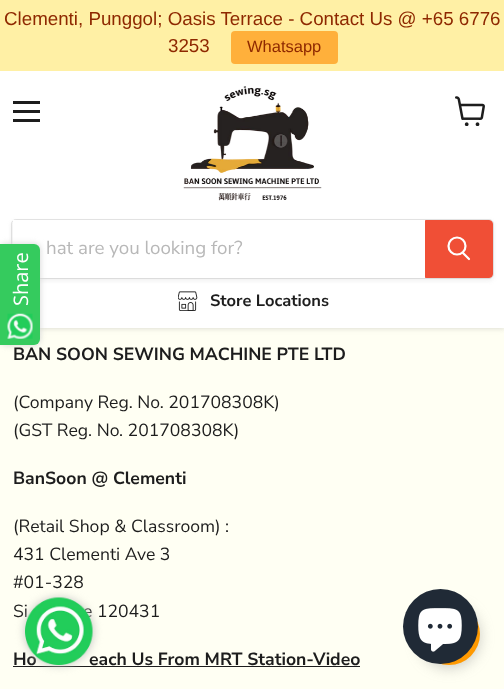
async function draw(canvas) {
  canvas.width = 504;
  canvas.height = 689;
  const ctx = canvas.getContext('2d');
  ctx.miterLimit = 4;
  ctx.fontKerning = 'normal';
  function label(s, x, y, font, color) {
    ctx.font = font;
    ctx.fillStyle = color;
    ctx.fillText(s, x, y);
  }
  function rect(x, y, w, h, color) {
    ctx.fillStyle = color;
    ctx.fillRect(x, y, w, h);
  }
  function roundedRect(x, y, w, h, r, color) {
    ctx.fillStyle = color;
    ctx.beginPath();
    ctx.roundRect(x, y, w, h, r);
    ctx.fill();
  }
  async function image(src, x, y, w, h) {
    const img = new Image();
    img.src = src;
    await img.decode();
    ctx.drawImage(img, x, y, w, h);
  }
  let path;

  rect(0, 0, 504, 689, '#fffff3');
  ctx.fillStyle = '#80808040';
  ctx.filter = 'blur(2.5px)';
  ctx.beginPath();
  ctx.rect(0, 71, 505, 258);
  ctx.fill();
  ctx.filter = 'none';
  rect(0, 0, 504, 71, '#fff0a5');
  label('Clementi, Punggol; Oasis Terrace - Contact Us @ +65 6776', 4, 25, '18.75px Liberation Sans', '#8e2800');
  label('3253', 168, 52, '18.75px Liberation Sans', '#8e2800');
  roundedRect(231, 31, 107, 33, 4, '#ffb03b');
  label('Whatsapp', 247, 52, '16.5px Liberation Sans', '#8e2800');
  rect(0, 71, 504, 257, '#fff');
  ctx.fillStyle = '#8080801c';
  ctx.filter = 'blur(2px)';
  ctx.beginPath();
  ctx.roundRect(11, 221, 483, 60, 5);
  ctx.fill();
  ctx.filter = 'none';
  ctx.beginPath();
  ctx.roundRect(11.5, 219.5, 482, 59, 4.5);
  ctx.strokeStyle = '#80808033';
  ctx.stroke();
  rect(13, 220, 412, 58, '#fff');
  ctx.fillStyle = '#d3d3d3';
  ctx.filter = 'blur(3px)';
  ctx.beginPath();
  ctx.roundRect(0, 244, 40, 101, 6);
  ctx.fill();
  ctx.filter = 'none';
  ctx.fillStyle = '#35cb5e';
  ctx.beginPath();
  ctx.roundRect(0, 244, 40, 101, [0, 6, 6, 0]);
  ctx.fill();
  ctx.font = '20px Open Sans';
  ctx.fillStyle = '#fff';
  ctx.save();
  ctx.translate(28, 306);
  ctx.rotate(-90 * Math.PI / 180);
  ctx.fillText('Share', 0, 0);
  ctx.restore();
  await image('assets/img1.png', 7, 313, 26, 26);
  rect(13, 101, 27, 3, '#1d1d1d');
  rect(13, 110, 27, 3, '#1d1d1d');
  rect(13, 119, 27, 3, '#1d1d1d');
  await image('assets/img2.png', 455, 96, 30, 30);
  await image('assets/img3.png', 183, 86, 139, 115);
  label('hat are you looking for?', 46, 254, '18.75px Nunito Sans', '#b8b8b8');
  ctx.fillStyle = '#f04f36';
  ctx.beginPath();
  ctx.roundRect(425.5, 220.5, 67, 57, [0, 3.5, 3.5, 0]);
  ctx.fill();
  ctx.strokeStyle = '#f04f36';
  ctx.stroke();
  path = new Path2D('M469 259L463 253');
  ctx.strokeStyle = '#fff';
  ctx.lineWidth = 2.2;
  ctx.lineCap = 'round';
  ctx.stroke(path);
  ctx.beginPath();
  ctx.arc(457, 246, 8.5, 0, 2 * Math.PI);
  ctx.stroke();
  await image('assets/img4.png', 178, 291, 20, 20);
  label('Store Locations', 210, 306, 'bold 16.5px Nunito Sans', '#1d1d1d');
  label('BAN SOON SEWING MACHINE PTE LTD', 13, 360, 'bold 17.6px Nunito Sans', '#1d1d1d');
  label('(Company Reg. No. 201708308K)', 13, 408, '17.6px Nunito Sans', '#1d1d1d');
  label('(GST Reg. No. 201708308K)', 13, 436, '17.6px Nunito Sans', '#1d1d1d');
  label('BanSoon @ Clementi', 13, 484, 'bold 17.6px Nunito Sans', '#1d1d1d');
  label('(Retail Shop & Classroom) :', 13, 532, '17.6px Nunito Sans', '#1d1d1d');
  label('431 Clementi Ave 3', 13, 560, '17.6px Nunito Sans', '#1d1d1d');
  label('#01-328', 13, 588, '17.6px Nunito Sans', '#1d1d1d');
  label('Si', 13, 617, '17.6px Nunito Sans', '#1d1d1d');
  label('e 120431', 83, 617, '17.6px Nunito Sans', '#1d1d1d');
  label('Ho', 13, 665, 'bold 17.6px Nunito Sans', '#1d1d1d');
  rect(13, 666, 347, 1, '#1d1d1d');
  label('each Us From MRT Station-Video', 89, 665, 'bold 17.6px Nunito Sans', '#1d1d1d');
  ctx.fillStyle = '#c2c2c2';
  ctx.filter = 'blur(5px)';
  ctx.beginPath();
  ctx.roundRect(25, 598, 68, 67, 33.5);
  ctx.fill();
  ctx.filter = 'none';
  await image('assets/img5.png', 25, 597, 68, 68);
  ctx.fillStyle = '#80808066';
  ctx.filter = 'blur(7px)';
  ctx.beginPath();
  ctx.roundRect(418, 605, 62, 63, 31);
  ctx.fill();
  ctx.filter = 'none';
  ctx.fillStyle = '#f90';
  ctx.beginPath();
  ctx.arc(449, 634, 31, 0, 2 * Math.PI);
  ctx.fill();
  ctx.fillStyle = '#202a36';
  ctx.beginPath();
  ctx.arc(440.5, 626.5, 37.5, 0, 2 * Math.PI);
  ctx.fill();
  await image('assets/img6.png', 418, 608, 44, 44);
}

draw(document.querySelector('canvas'));
